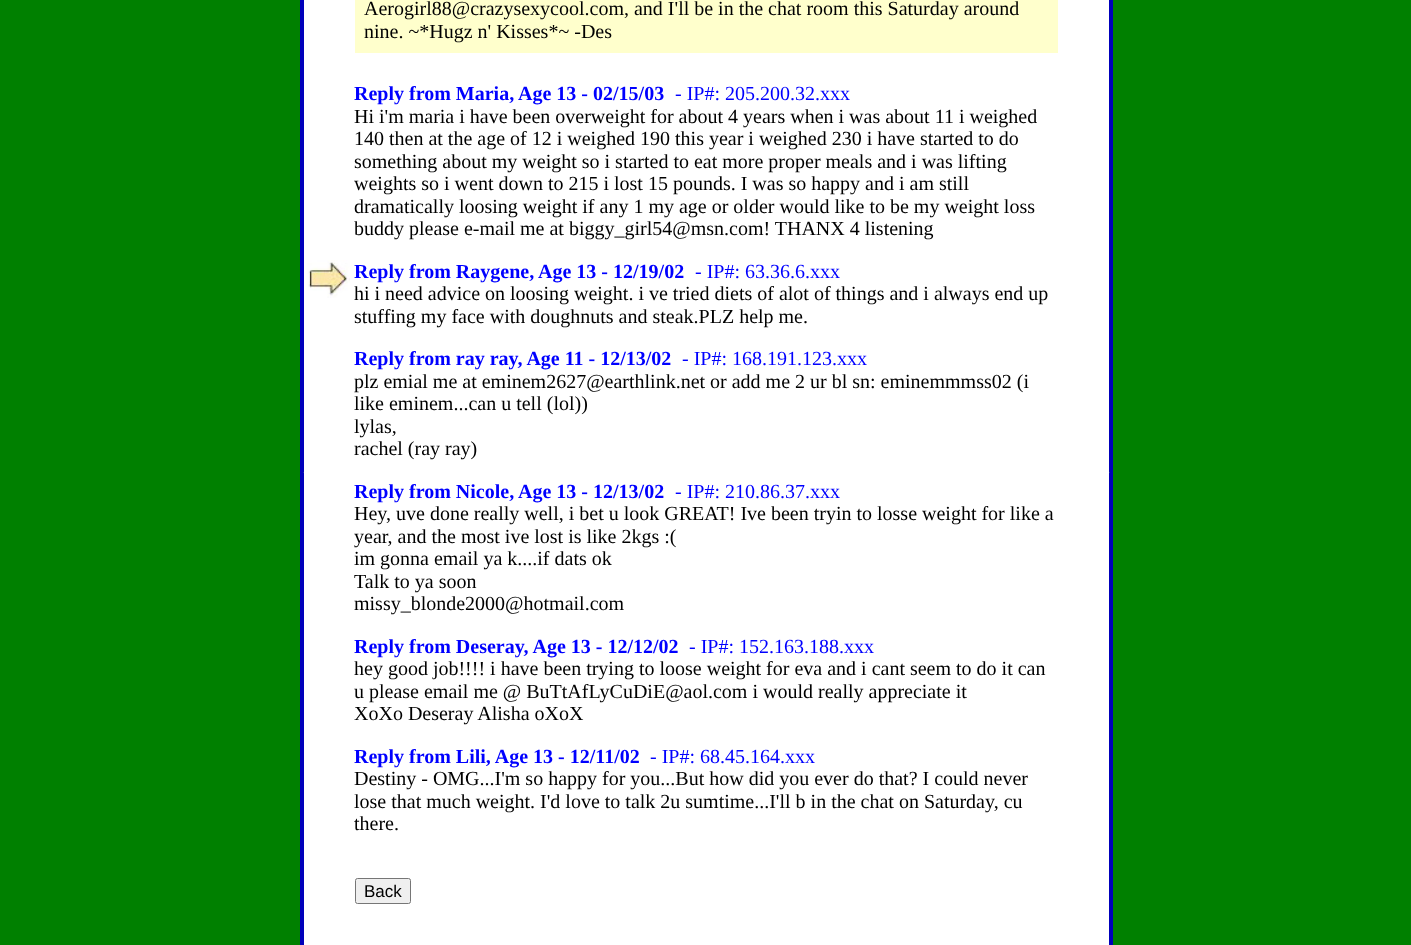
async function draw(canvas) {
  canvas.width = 1411;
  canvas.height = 945;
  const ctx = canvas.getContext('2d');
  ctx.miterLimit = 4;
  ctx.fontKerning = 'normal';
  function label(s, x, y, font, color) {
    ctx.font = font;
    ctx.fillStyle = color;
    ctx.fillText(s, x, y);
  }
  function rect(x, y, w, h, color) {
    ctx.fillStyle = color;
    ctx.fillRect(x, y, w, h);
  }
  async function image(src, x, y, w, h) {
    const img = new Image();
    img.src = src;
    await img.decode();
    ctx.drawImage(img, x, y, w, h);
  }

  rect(0, 0, 1411, 945, '#008000');
  ctx.strokeStyle = '#00b';
  ctx.lineWidth = 3;
  ctx.strokeRect(301.5, -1.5, 810, 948);
  ctx.fillStyle = '#fff';
  ctx.beginPath();
  ctx.rect(303.5, -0.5, 806, 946);
  ctx.fill();
  ctx.lineWidth = 1;
  ctx.stroke();
  rect(355, 0, 703, 53, '#ffc');
  label('Aerogirl88@crazysexycool.com, and I\'ll be in the chat room this Saturday around', 364, 15, '20px Liberation Serif', '#000');
  label('nine. ~*Hugz n\' Kisses*~ -Des', 364, 38, '20px Liberation Serif', '#000');
  label('Reply from Maria, Age 13 - 02/15/03', 354, 100, 'bold 20px Liberation Serif', '#00f');
  label('- IP#: 205.200.32.xxx', 675, 100, '20px Liberation Serif', '#00f');
  label('Hi i\'m maria i have been overweight for about 4 years when i was about 11 i weighed', 354, 123, '20px Liberation Serif', '#000');
  label('140 then at the age of 12 i weighed 190 this year i weighed 230 i have started to do', 354, 145, '20px Liberation Serif', '#000');
  label('something about my weight so i started to eat more proper meals and i was lifting', 354, 168, '20px Liberation Serif', '#000');
  label('weights so i went down to 215 i lost 15 pounds. I was so happy and i am still', 354, 190, '20px Liberation Serif', '#000');
  label('dramatically loosing weight if any 1 my age or older would like to be my weight loss', 354, 213, '20px Liberation Serif', '#000');
  label('buddy please e-mail me at biggy_girl54@msn.com! THANX 4 listening', 354, 235, '20px Liberation Serif', '#000');
  await image('assets/img1.png', 307, 260, 43, 38);
  label('Reply from Raygene, Age 13 - 12/19/02', 354, 278, 'bold 20px Liberation Serif', '#00f');
  label('- IP#: 63.36.6.xxx', 695, 278, '20px Liberation Serif', '#00f');
  label('hi i need advice on loosing weight. i ve tried diets of alot of things and i always end up', 354, 300, '20px Liberation Serif', '#000');
  label('stuffing my face with doughnuts and steak.PLZ help me.', 354, 323, '20px Liberation Serif', '#000');
  label('Reply from ray ray, Age 11 - 12/13/02', 354, 365, 'bold 20px Liberation Serif', '#00f');
  label('- IP#: 168.191.123.xxx', 682, 365, '20px Liberation Serif', '#00f');
  label('plz emial me at eminem2627@earthlink.net or add me 2 ur bl sn: eminemmmss02 (i', 354, 388, '20px Liberation Serif', '#000');
  label('like eminem...can u tell (lol))', 354, 410, '20px Liberation Serif', '#000');
  label('lylas,', 354, 433, '20px Liberation Serif', '#000');
  label('rachel (ray ray)', 354, 455, '20px Liberation Serif', '#000');
  label('Reply from Nicole, Age 13 - 12/13/02', 354, 498, 'bold 20px Liberation Serif', '#00f');
  label('- IP#: 210.86.37.xxx', 675, 498, '20px Liberation Serif', '#00f');
  label('Hey, uve done really well, i bet u look GREAT! Ive been tryin to losse weight for like a', 354, 520, '20px Liberation Serif', '#000');
  label('year, and the most ive lost is like 2kgs :(', 354, 543, '20px Liberation Serif', '#000');
  label('im gonna email ya k....if dats ok', 354, 565, '20px Liberation Serif', '#000');
  label('Talk to ya soon', 354, 588, '20px Liberation Serif', '#000');
  label('missy_blonde2000@hotmail.com', 354, 610, '20px Liberation Serif', '#000');
  label('Reply from Deseray, Age 13 - 12/12/02', 354, 653, 'bold 20px Liberation Serif', '#00f');
  label('- IP#: 152.163.188.xxx', 689, 653, '20px Liberation Serif', '#00f');
  label('hey good job!!!! i have been trying to loose weight for eva and i cant seem to do it can', 354, 675, '20px Liberation Serif', '#000');
  label('u please email me @ BuTtAfLyCuDiE@aol.com i would really appreciate it', 354, 698, '20px Liberation Serif', '#000');
  label('XoXo Deseray Alisha oXoX', 354, 720, '20px Liberation Serif', '#000');
  label('Reply from Lili, Age 13 - 12/11/02', 354, 763, 'bold 20px Liberation Serif', '#00f');
  label('- IP#: 68.45.164.xxx', 650, 763, '20px Liberation Serif', '#00f');
  label('Destiny - OMG...I\'m so happy for you...But how did you ever do that? I could never', 354, 785, '20px Liberation Serif', '#000');
  label('lose that much weight. I\'d love to talk 2u sumtime...I\'ll b in the chat on Saturday, cu', 354, 808, '20px Liberation Serif', '#000');
  label('there.', 354, 830, '20px Liberation Serif', '#000');
  ctx.fillStyle = '#efefef';
  ctx.beginPath();
  ctx.roundRect(355.5, 878.5, 55, 25, 2);
  ctx.fill();
  ctx.strokeStyle = '#767676';
  ctx.stroke();
  label('Back', 364, 897, '17px Liberation Sans', '#000');
}

draw(document.querySelector('canvas'));
